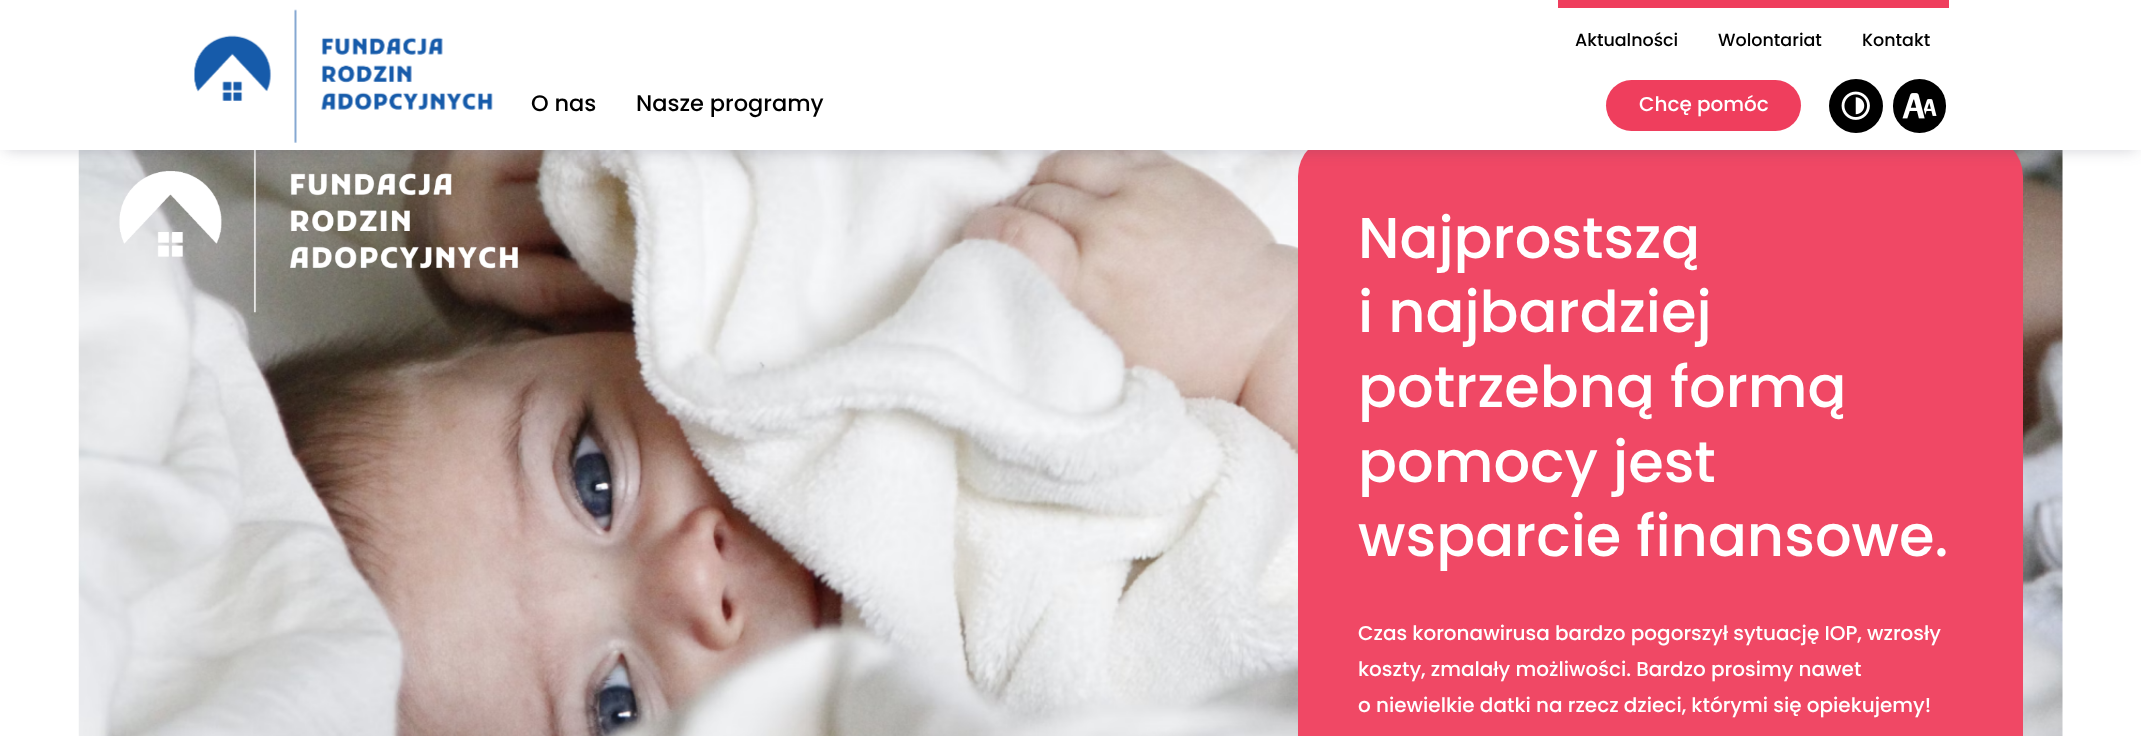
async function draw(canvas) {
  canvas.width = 2141;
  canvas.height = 736;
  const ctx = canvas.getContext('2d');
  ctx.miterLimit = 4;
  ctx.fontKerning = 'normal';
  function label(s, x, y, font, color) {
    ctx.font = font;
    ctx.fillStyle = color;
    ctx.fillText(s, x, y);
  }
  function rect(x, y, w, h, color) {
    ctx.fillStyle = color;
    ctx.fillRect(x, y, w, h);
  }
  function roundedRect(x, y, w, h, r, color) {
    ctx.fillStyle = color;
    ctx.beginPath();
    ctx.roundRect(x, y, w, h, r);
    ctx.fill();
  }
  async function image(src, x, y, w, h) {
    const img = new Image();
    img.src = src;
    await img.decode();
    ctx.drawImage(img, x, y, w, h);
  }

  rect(0, 0, 2141, 736, '#fff');
  await image('assets/img4.png', 78, 150, 1985, 586);
  await image('assets/img5.png', 119, 150, 399, 163);
  roundedRect(1298, 136, 725, 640, 40, '#f04865');
  ctx.fillStyle = '#42445a40';
  ctx.filter = 'blur(7.5px)';
  ctx.beginPath();
  ctx.rect(5, 10, 2131, 140);
  ctx.fill();
  ctx.filter = 'none';
  rect(0, 0, 2141, 150, '#fff');
  await image('assets/img1.png', 194, 9, 299, 134);
  rect(1558, 0, 391, 8, '#ef3e5d');
  label('Aktualności', 1575, 46, '500 17.5px Poppins', '#000');
  label('Wolontariat', 1718, 46, '500 17.5px Poppins', '#000');
  label('Kontakt', 1862, 46, '500 17.5px Poppins', '#000');
  label('O nas', 531, 111, '500 22.5px Poppins', '#000');
  label('Nasze programy', 636, 111, '500 22.5px Poppins', '#000');
  roundedRect(1606, 80, 195, 51, 25.5, '#ef3e5d');
  label('Chcę pomóc', 1639, 111, '500 20px Poppins', '#fff');
  ctx.fillStyle = '#000';
  ctx.beginPath();
  ctx.arc(1856, 106, 27, 0, 2 * Math.PI);
  ctx.fill();
  await image('assets/img2.png', 1841, 91, 29, 29);
  roundedRect(1893, 79, 53, 54, 26.5, '#000');
  await image('assets/img3.png', 1902, 93, 35, 26);
  label('Najprostszą', 1358, 258, '500 57.5px Poppins', '#fff');
  label('i najbardziej', 1358, 332, '500 57.5px Poppins', '#fff');
  label('potrzebną formą', 1358, 407, '500 57.5px Poppins', '#fff');
  label('pomocy jest', 1358, 482, '500 57.5px Poppins', '#fff');
  label('wsparcie finansowe.', 1358, 556, '500 57.5px Poppins', '#fff');
  label('Czas koronawirusa bardzo pogorszył sytuację IOP, wzrosły', 1358, 640, '500 20px Poppins', '#fff');
  label('koszty, zmalały możliwości. Bardzo prosimy nawet', 1358, 676, '500 20px Poppins', '#fff');
  label('o niewielkie datki na rzecz dzieci, którymi się opiekujemy!', 1358, 712, '500 20px Poppins', '#fff');
}

draw(document.querySelector('canvas'));
